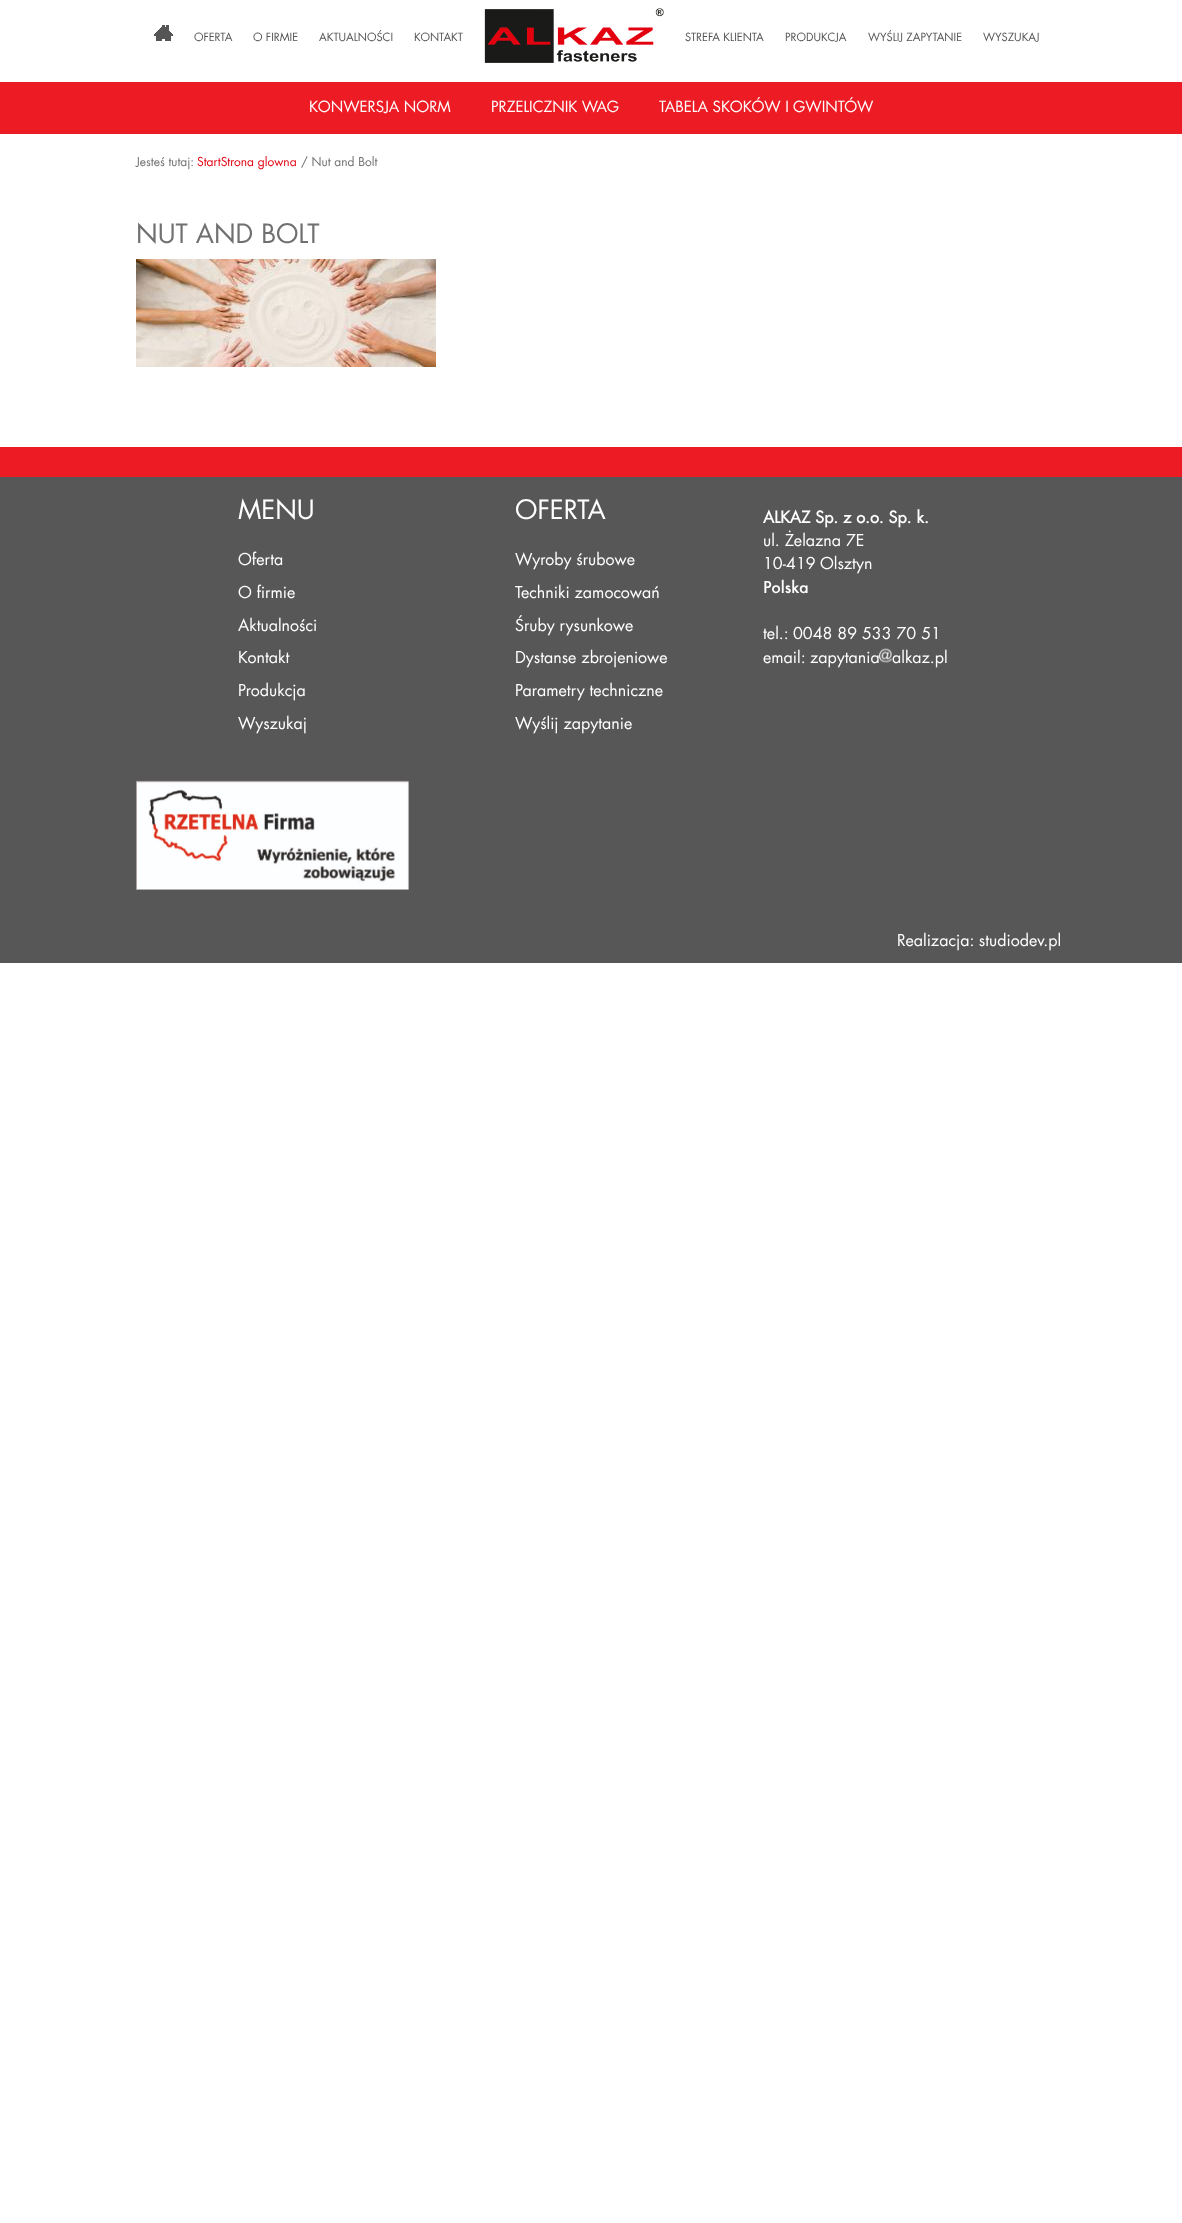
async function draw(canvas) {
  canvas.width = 1182;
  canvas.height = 2223;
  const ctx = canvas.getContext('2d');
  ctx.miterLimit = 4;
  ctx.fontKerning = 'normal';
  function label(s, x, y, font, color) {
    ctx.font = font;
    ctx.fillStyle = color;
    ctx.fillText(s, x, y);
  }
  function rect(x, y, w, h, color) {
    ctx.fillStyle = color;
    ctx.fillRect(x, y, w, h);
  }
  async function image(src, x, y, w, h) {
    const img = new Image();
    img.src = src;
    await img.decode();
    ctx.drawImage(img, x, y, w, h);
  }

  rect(0, 0, 1182, 2223, '#fff');
  await image('assets/img1.png', 154, 25, 19, 16);
  label('OFERTA', 194, 41, '11px Futura', '#555');
  label('O FIRMIE', 253, 41, '11px Futura', '#555');
  label('AKTUALNOŚCI', 319, 41, '11px Futura', '#555');
  label('KONTAKT', 414, 41, '11px Futura', '#555');
  await image('assets/img2.png', 484, 8, 180, 55);
  label('STREFA KLIENTA', 685, 41, '11px Futura', '#555');
  label('PRODUKCJA', 785, 41, '11px Futura', '#555');
  label('WYŚLIJ ZAPYTANIE', 868, 41, '11px Futura', '#555');
  label('WYSZUKAJ', 983, 41, '11px Futura', '#555');
  rect(0, 82, 1182, 52, '#ed1b24');
  label('KONWERSJA NORM', 309, 112, '15px Futura', '#fff');
  label('PRZELICZNIK WAG', 491, 112, '15px Futura', '#fff');
  label('TABELA SKOKÓW I GWINTÓW', 659, 112, '15px Futura', '#fff');
  label('Jesteś tutaj:', 136, 166, '12px Futura', '#707070');
  label('StartStrona glowna', 197, 166, '12px Futura', '#e3000f');
  label('/ Nut and Bolt', 301, 166, '12px Futura', '#707070');
  label('NUT AND BOLT', 136, 243, '26px Futura', '#707070');
  await image('assets/img3.png', 136, 259, 300, 108);
  rect(0, 447, 1182, 30, '#ed1b24');
  rect(0, 477, 1182, 486, '#575757');
  label('MENU', 238, 519, '26px Futura', '#fff');
  label('Oferta', 238, 565, '16px Futura', '#fff');
  label('O firmie', 238, 598, '16px Futura', '#fff');
  label('Aktualności', 238, 631, '16px Futura', '#fff');
  label('Kontakt', 238, 663, '16px Futura', '#fff');
  label('Produkcja', 238, 696, '16px Futura', '#fff');
  label('Wyszukaj', 238, 729, '16px Futura', '#fff');
  label('OFERTA', 515, 519, '26px Futura', '#fff');
  label('Wyroby śrubowe', 515, 565, '16px Futura', '#fff');
  label('Techniki zamocowań', 515, 598, '16px Futura', '#fff');
  label('Śruby rysunkowe', 515, 631, '16px Futura', '#fff');
  label('Dystanse zbrojeniowe', 515, 663, '16px Futura', '#fff');
  label('Parametry techniczne', 515, 696, '16px Futura', '#fff');
  label('Wyślij zapytanie', 515, 729, '16px Futura', '#fff');
  label('ALKAZ Sp. z o.o. Sp. k.', 763, 523, 'bold 16px Futura', '#fff');
  label('ul. Żelazna 7E', 763, 546, '16px Futura', '#fff');
  label('10-419', 763, 569, '16px Futura', '#fff');
  label('Olsztyn', 820, 569, '16px Futura', '#fff');
  label('Polska', 763, 593, '500 16px Futura', '#fff');
  label('tel.:', 763, 639, '16px Futura', '#fff');
  label('0048 89 533 70 51', 793, 639, '16px Futura', '#fff');
  label('email: zapytania', 763, 663, '16px Futura', '#fff');
  await image('assets/img4.png', 879, 648, 13, 15);
  label('alkaz.pl', 892, 663, '16px Futura', '#fff');
  await image('assets/img5.png', 136, 780, 273, 110);
  label('Realizacja: studiodev.pl', 897, 946, '16px Futura', '#fff');
}

draw(document.querySelector('canvas'));
